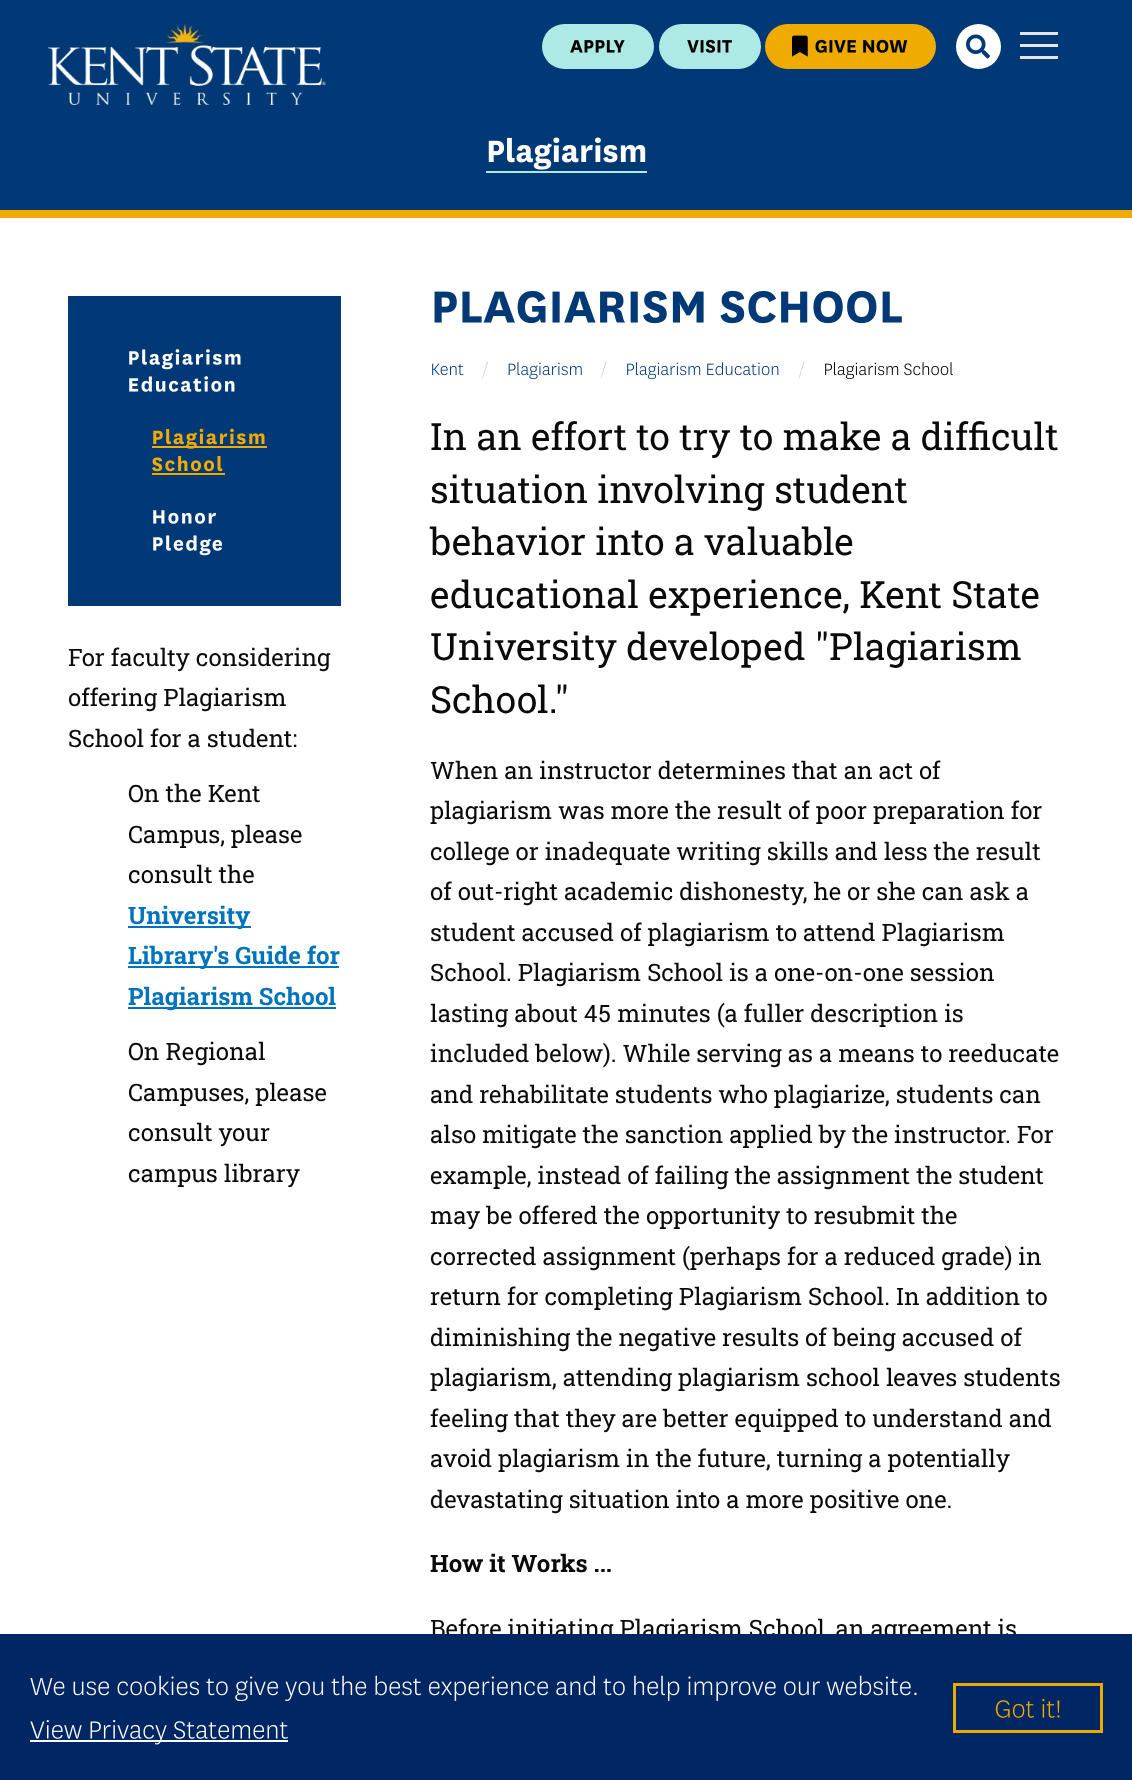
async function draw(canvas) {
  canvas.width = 1132;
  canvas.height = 1780;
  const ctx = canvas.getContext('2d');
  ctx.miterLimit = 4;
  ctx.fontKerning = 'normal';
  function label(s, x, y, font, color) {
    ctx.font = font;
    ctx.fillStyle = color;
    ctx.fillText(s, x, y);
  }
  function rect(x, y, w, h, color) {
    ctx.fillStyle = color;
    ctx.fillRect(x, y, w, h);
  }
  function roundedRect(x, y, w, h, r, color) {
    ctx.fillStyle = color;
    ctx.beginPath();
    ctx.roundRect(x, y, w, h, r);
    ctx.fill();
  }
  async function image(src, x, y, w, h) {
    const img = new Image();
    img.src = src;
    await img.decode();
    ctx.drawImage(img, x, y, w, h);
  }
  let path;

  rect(0, 0, 1132, 1780, '#fff');
  rect(0, 0, 1132, 210, '#003976');
  rect(0, 210, 1132, 8, '#efab00');
  await image('assets/img1.png', 48, 24, 278, 81);
  roundedRect(542, 24, 112, 45, 22.5, '#aeeae5');
  await image('assets/img2.png', 570, 40, 55, 13);
  roundedRect(659, 24, 102, 45, 22.5, '#aeeae5');
  await image('assets/img3.png', 687, 39, 45, 14);
  roundedRect(765, 24, 171, 45, 22.5, '#efab00');
  await image('assets/img4.png', 792, 35, 16, 22);
  await image('assets/img5.png', 815, 39, 93, 14);
  ctx.fillStyle = '#fff';
  ctx.beginPath();
  ctx.arc(978.5, 46.5, 22.5, 0, 2 * Math.PI);
  ctx.fill();
  await image('assets/img6.png', 966, 34, 24, 25);
  rect(1020, 44, 38, 3, '#e6e6e6');
  rect(1020, 32, 38, 3, '#e6e6e6');
  rect(1020, 56, 38, 3, '#e6e6e6');
  await image('assets/img7.png', 488, 137, 158, 33);
  rect(486, 171, 161, 2, '#aeeae5');
  rect(68, 296, 273, 310, '#003976');
  await image('assets/img8.png', 129, 349, 112, 21);
  await image('assets/img9.png', 129, 376, 106, 16);
  rect(152, 446, 115, 2, '#efab00');
  await image('assets/img10.png', 153, 428, 112, 21);
  await image('assets/img11.png', 152, 456, 71, 16);
  rect(152, 473, 73, 2, '#efab00');
  await image('assets/img12.png', 153, 510, 63, 14);
  await image('assets/img13.png', 153, 535, 69, 21);
  label('For faculty considering', 68, 666, '24px Roboto Slab', '#0a0a0a');
  label('offering Plagiarism', 68, 706, '24px Roboto Slab', '#0a0a0a');
  label('School for a student:', 68, 747, '24px Roboto Slab', '#0a0a0a');
  label('On the Kent', 128, 802, '24px Roboto Slab', '#0a0a0a');
  label('Campus, please', 128, 843, '24px Roboto Slab', '#0a0a0a');
  label('consult the', 128, 883, '24px Roboto Slab', '#0a0a0a');
  rect(128, 926, 123, 2, '#0073bd');
  label('University', 128, 924, 'bold 24px Roboto Slab', '#0073bd');
  rect(128, 966, 211, 2, '#0073bd');
  label('Library\'s Guide for', 128, 964, 'bold 24px Roboto Slab', '#0073bd');
  rect(128, 1007, 208, 2, '#0073bd');
  label('Plagiarism School', 128, 1005, 'bold 24px Roboto Slab', '#0073bd');
  label('On Regional', 128, 1060, '24px Roboto Slab', '#0a0a0a');
  label('Campuses, please', 128, 1101, '24px Roboto Slab', '#0a0a0a');
  label('consult your', 128, 1141, '24px Roboto Slab', '#0a0a0a');
  label('campus library', 128, 1182, '24px Roboto Slab', '#0a0a0a');
  await image('assets/img14.png', 434, 290, 468, 34);
  await image('assets/img15.png', 432, 363, 32, 13);
  ctx.fillStyle = '#cacaca';
  path = new Path2D('M487 362H488L482.5 379H482Z');
  ctx.fill(path);
  await image('assets/img16.png', 508, 362, 74, 18);
  path = new Path2D('M605.5 362H606.5L601 379H600.5Z');
  ctx.fill(path);
  await image('assets/img17.png', 627, 362, 152, 18);
  path = new Path2D('M803.5 362H804.5L799 379H798.5Z');
  ctx.fill(path);
  await image('assets/img18.png', 825, 362, 128, 18);
  label('In an effort to try to make a difficult', 430, 450, '37.5px Roboto Slab', '#0a0a0a');
  label('situation involving student', 430, 503, '37.5px Roboto Slab', '#0a0a0a');
  label('behavior into a valuable', 430, 555, '37.5px Roboto Slab', '#0a0a0a');
  label('educational experience, Kent State', 430, 608, '37.5px Roboto Slab', '#0a0a0a');
  label('University developed "Plagiarism', 430, 660, '37.5px Roboto Slab', '#0a0a0a');
  label('School."', 430, 713, '37.5px Roboto Slab', '#0a0a0a');
  label('When an instructor determines that an act of', 430, 779, '24px Roboto Slab', '#0a0a0a');
  label('plagiarism was more the result of poor preparation for', 430, 819, '24px Roboto Slab', '#0a0a0a');
  label('college or inadequate writing skills and less the result', 430, 860, '24px Roboto Slab', '#0a0a0a');
  label('of out-right academic dishonesty, he or she can ask a', 430, 900, '24px Roboto Slab', '#0a0a0a');
  label('student accused of plagiarism to attend Plagiarism', 430, 941, '24px Roboto Slab', '#0a0a0a');
  label('School. Plagiarism School is a one-on-one session', 430, 981, '24px Roboto Slab', '#0a0a0a');
  label('lasting about 45 minutes (a fuller description is', 430, 1022, '24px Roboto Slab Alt', '#0a0a0a');
  label('included below). While serving as a means to reeducate', 430, 1062, '24px Roboto Slab', '#0a0a0a');
  label('and rehabilitate students who plagiarize, students can', 430, 1103, '24px Roboto Slab', '#0a0a0a');
  label('also mitigate the sanction applied by the instructor. For', 430, 1143, '24px Roboto Slab', '#0a0a0a');
  label('example, instead of failing the assignment the student', 430, 1184, '24px Roboto Slab', '#0a0a0a');
  label('may be offered the opportunity to resubmit the', 430, 1224, '24px Roboto Slab', '#0a0a0a');
  label('corrected assignment (perhaps for a reduced grade) in', 430, 1265, '24px Roboto Slab', '#0a0a0a');
  label('return for completing Plagiarism School. In addition to', 430, 1305, '24px Roboto Slab', '#0a0a0a');
  label('diminishing the negative results of being accused of', 430, 1346, '24px Roboto Slab', '#0a0a0a');
  label('plagiarism, attending plagiarism school leaves students', 430, 1386, '24px Roboto Slab', '#0a0a0a');
  label('feeling that they are better equipped to understand and', 430, 1427, '24px Roboto Slab', '#0a0a0a');
  label('avoid plagiarism in the future, turning a potentially', 430, 1467, '24px Roboto Slab', '#0a0a0a');
  label('devastating situation into a more positive one.', 430, 1508, '24px Roboto Slab', '#0a0a0a');
  label('How it Works ...', 430, 1572, 'bold 24px Roboto Slab', '#0a0a0a');
  label('Before initiating Plagiarism School, an agreement is', 430, 1637, '24px Roboto Slab', '#0a0a0a');
  rect(0, 1634, 1132, 146, '#002664');
  await image('assets/img19.png', 30, 1675, 887, 27);
  rect(30, 1740, 258, 2, '#fff');
  await image('assets/img20.png', 30, 1720, 258, 25);
  ctx.strokeStyle = '#eaab00';
  ctx.lineWidth = 3;
  ctx.strokeRect(954.5, 1684.5, 147, 47);
  await image('assets/img21.png', 995, 1699, 65, 19);
}

draw(document.querySelector('canvas'));
